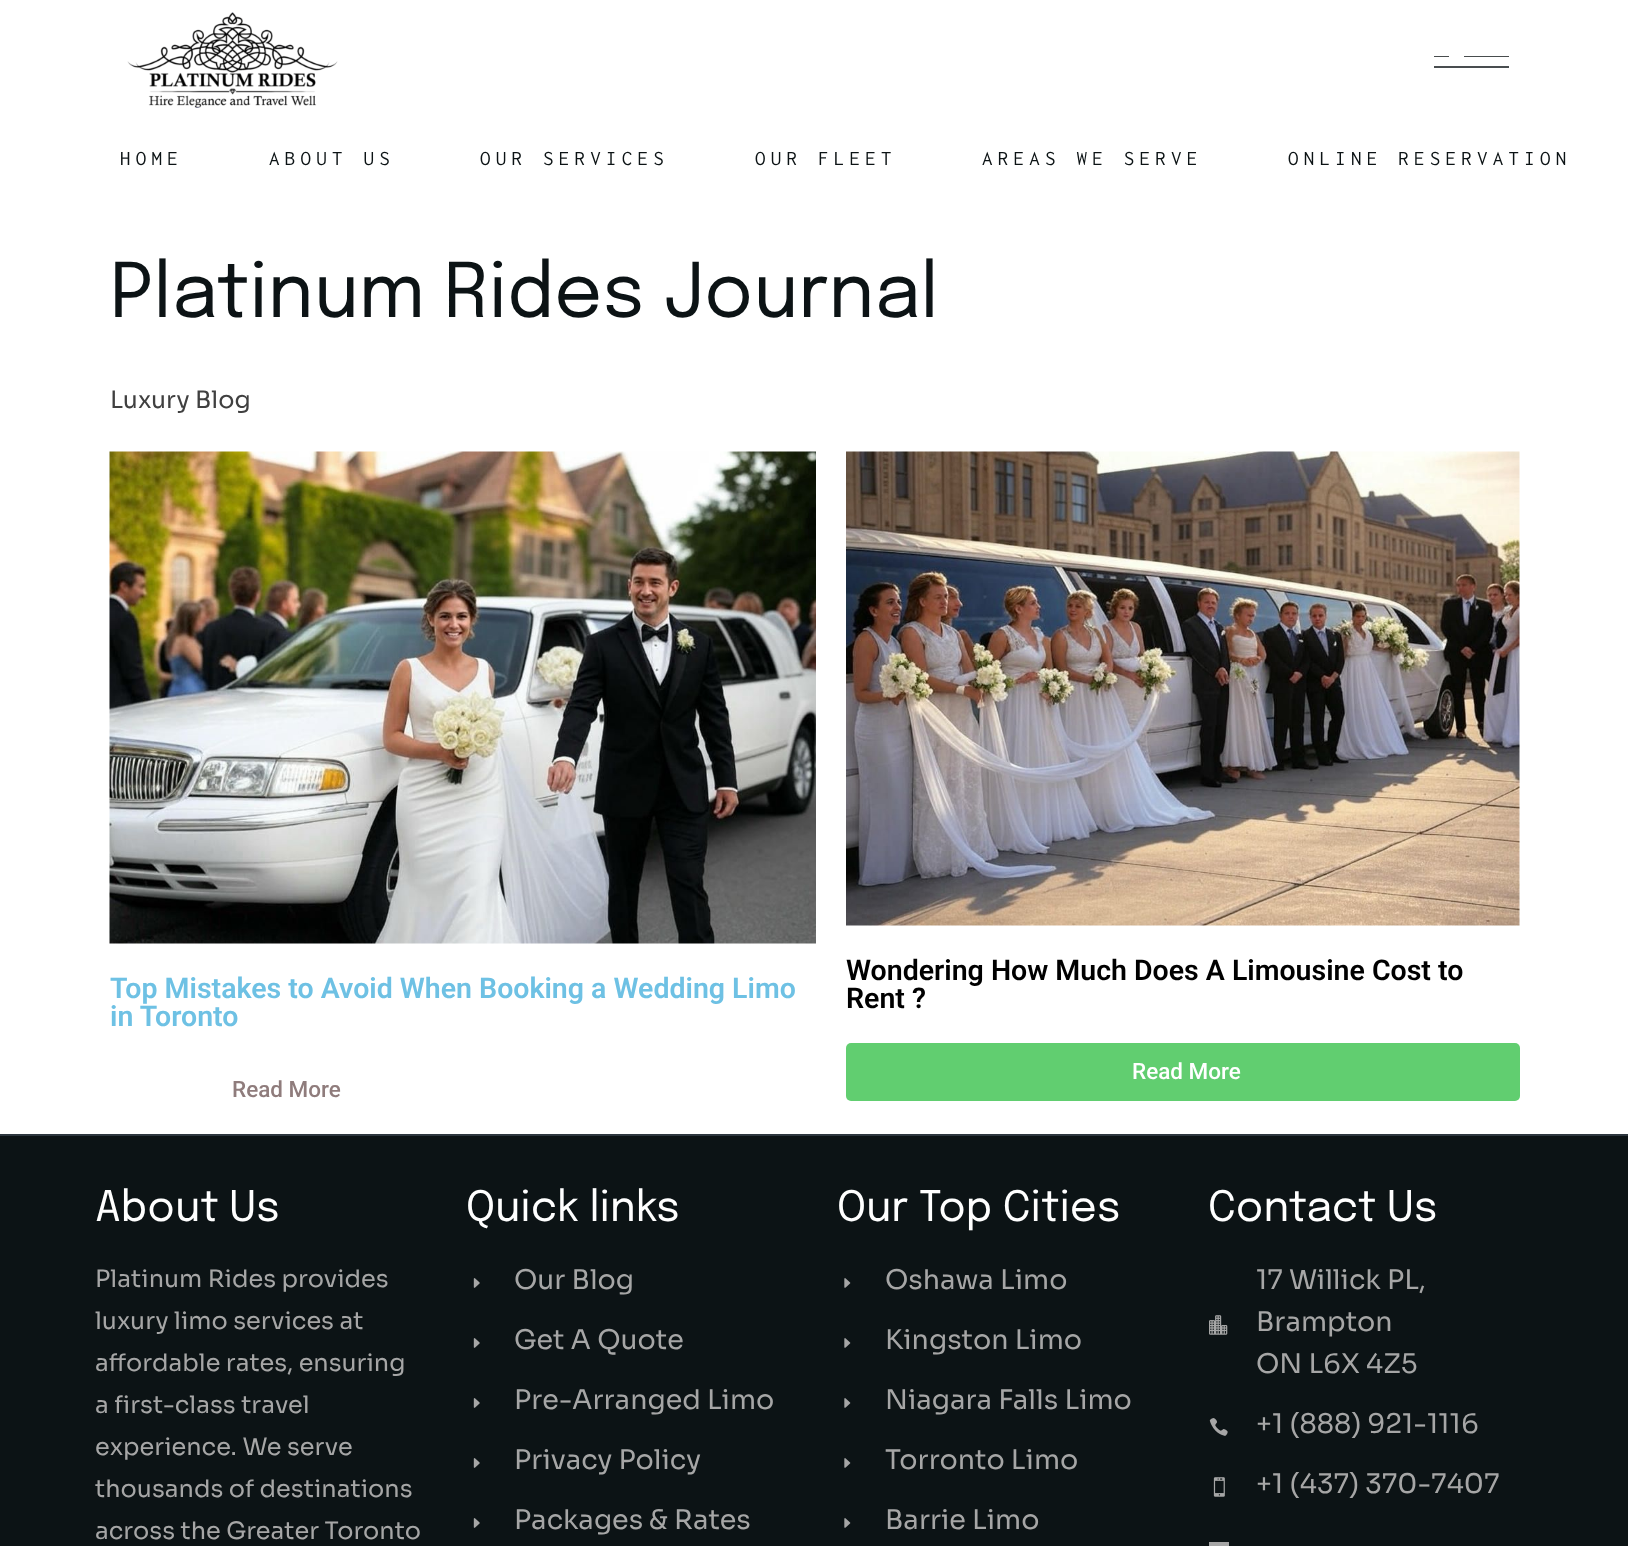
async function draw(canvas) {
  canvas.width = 1628;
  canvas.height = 1546;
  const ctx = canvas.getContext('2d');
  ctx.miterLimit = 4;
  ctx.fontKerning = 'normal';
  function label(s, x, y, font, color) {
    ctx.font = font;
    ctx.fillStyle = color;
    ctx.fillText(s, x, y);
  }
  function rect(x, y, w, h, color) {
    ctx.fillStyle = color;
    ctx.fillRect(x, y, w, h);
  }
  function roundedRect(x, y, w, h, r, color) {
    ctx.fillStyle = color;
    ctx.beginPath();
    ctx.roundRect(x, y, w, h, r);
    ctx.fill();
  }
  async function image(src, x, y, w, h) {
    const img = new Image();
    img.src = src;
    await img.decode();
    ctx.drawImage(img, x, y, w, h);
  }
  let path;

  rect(0, 0, 1628, 1546, '#fff');
  await image('assets/img1.png', 127, 12, 211, 96);
  ctx.save();
  ctx.beginPath();
  ctx.rect(1434, 56, 75, 12);
  ctx.clip();
  path = new Path2D('M1434 56H1449M1464 56H1509');
  ctx.strokeStyle = '#0c1315';
  ctx.lineWidth = 1.5;
  ctx.stroke(path);
  ctx.restore();
  rect(1434, 66, 75, 2, '#494e50');
  ctx.letterSpacing = '5.25px';
  label('HOME', 120, 165, '21px Inconsolata', '#0c1315');
  label('ABOUT US', 269, 165, '21px Inconsolata', '#0c1315');
  label('OUR SERVICES', 480, 165, '21px Inconsolata', '#0c1315');
  label('OUR FLEET', 755, 165, '21px Inconsolata', '#0c1315');
  label('AREAS WE SERVE', 982, 165, '21px Inconsolata', '#0c1315');
  label('ONLINE RESERVATION', 1288, 165, '21px Inconsolata', '#0c1315');
  ctx.letterSpacing = '0px';
  label('Platinum Rides Journal', 110, 317, '75px Epilogue', '#0c1315');
  label('Luxury Blog', 110, 408, '24px Sora', '#404040');
  await image('assets/img2.png', 109, 451, 707, 493);
  label('Top Mistakes to Avoid When Booking a Wedding Limo', 110, 998, '600 28.5px Roboto', '#6ec1e4');
  label('in Toronto', 110, 1026, '600 28.5px Roboto', '#6ec1e4');
  label('Read More', 232, 1097, '500 22.5px Roboto', '#8f7c7c');
  await image('assets/img3.png', 846, 451, 674, 475);
  label('Wondering How Much Does A Limousine Cost to', 846, 980, '600 28.5px Roboto', '#000');
  label('Rent ?', 846, 1008, '600 28.5px Roboto', '#000');
  roundedRect(846, 1043, 674, 58, 5, '#61ce70');
  label('Read More', 1132, 1079, '500 22.5px Roboto', '#fff');
  rect(0, 1136, 1628, 410, '#0c1315');
  rect(0, 1134, 1628, 2, '#2d363e');
  label('About Us', 95, 1221, '42px Epilogue', '#fff');
  label('Platinum Rides provides', 95, 1287, '24px Sora', '#a6a6a6');
  label('luxury limo services at', 95, 1329, '24px Sora', '#a6a6a6');
  label('affordable rates, ensuring', 95, 1371, '24px Sora', '#a6a6a6');
  label('a first-class travel', 95, 1413, '24px Sora', '#a6a6a6');
  label('experience. We serve', 95, 1455, '24px Sora', '#a6a6a6');
  label('thousands of destinations', 95, 1497, '24px Sora', '#a6a6a6');
  label('across the Greater Toronto', 95, 1539, '24px Sora', '#a6a6a6');
  label('Quick links', 466, 1221, '42px Epilogue', '#fff');
  await image('assets/img4.png', 473, 1278, 7, 10);
  label('Our Blog', 514, 1289, '27px Sora', '#a6a6a6');
  await image('assets/img4.png', 473, 1338, 7, 10);
  label('Get A Quote', 514, 1349, '27px Sora', '#a6a6a6');
  await image('assets/img4.png', 473, 1398, 7, 10);
  label('Pre-Arranged Limo', 514, 1409, '27px Sora', '#a6a6a6');
  await image('assets/img4.png', 473, 1458, 7, 10);
  label('Privacy Policy', 514, 1469, '27px Sora', '#a6a6a6');
  await image('assets/img4.png', 473, 1518, 7, 10);
  label('Packages & Rates', 514, 1529, '27px Sora', '#a6a6a6');
  label('Our Top Cities', 837, 1221, '42px Epilogue', '#fff');
  await image('assets/img5.png', 844, 1278, 7, 10);
  label('Oshawa Limo', 885, 1289, '27px Sora', '#a6a6a6');
  await image('assets/img5.png', 844, 1338, 7, 10);
  label('Kingston Limo', 885, 1349, '27px Sora', '#a6a6a6');
  await image('assets/img5.png', 844, 1398, 7, 10);
  label('Niagara Falls Limo', 885, 1409, '27px Sora', '#a6a6a6');
  await image('assets/img5.png', 844, 1458, 7, 10);
  label('Torronto Limo', 885, 1469, '27px Sora', '#a6a6a6');
  await image('assets/img5.png', 844, 1518, 7, 10);
  label('Barrie Limo', 885, 1529, '27px Sora', '#a6a6a6');
  label('Contact Us', 1208, 1221, '42px Epilogue', '#fff');
  await image('assets/img6.png', 1209, 1315, 19, 20);
  label('17 Willick PL,', 1256, 1289, '27px Sora', '#a6a6a6');
  label('Brampton', 1256, 1331, '27px Sora', '#a6a6a6');
  label('ON L6X 4Z5', 1256, 1373, '27px Sora', '#a6a6a6');
  await image('assets/img7.png', 1209, 1418, 19, 18);
  label('+1 (888) 921-1116', 1256, 1433, '27px Sora', '#a6a6a6');
  await image('assets/img8.png', 1213, 1477, 12, 20);
  label('+1 (437) 370-7407', 1256, 1493, '27px Sora', '#a6a6a6');
  rect(1209, 1542, 20, 4, '#a6a6a6');
}

draw(document.querySelector('canvas'));
